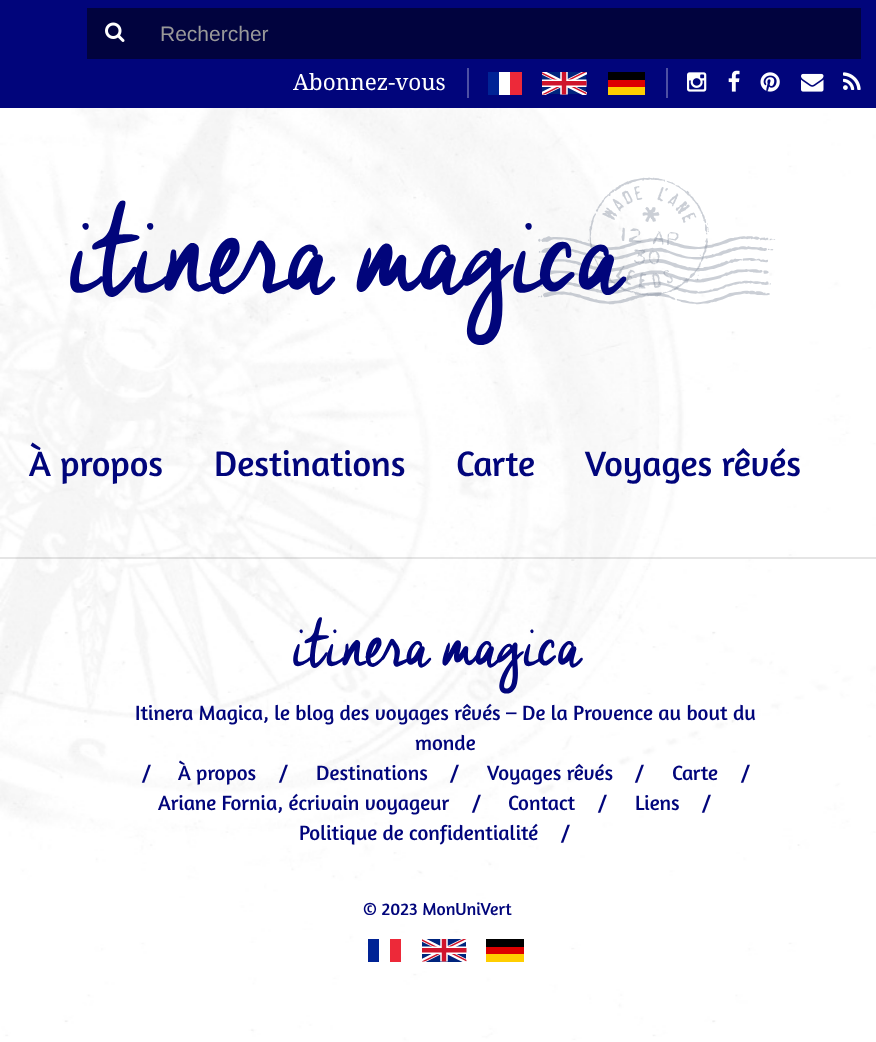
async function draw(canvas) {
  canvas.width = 876;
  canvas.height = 1042;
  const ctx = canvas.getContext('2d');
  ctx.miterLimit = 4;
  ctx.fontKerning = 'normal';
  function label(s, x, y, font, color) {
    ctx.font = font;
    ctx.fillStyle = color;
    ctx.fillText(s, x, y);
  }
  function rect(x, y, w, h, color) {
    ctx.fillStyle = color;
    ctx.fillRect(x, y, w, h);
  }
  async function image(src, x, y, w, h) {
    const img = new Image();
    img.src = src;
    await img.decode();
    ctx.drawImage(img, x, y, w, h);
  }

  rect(0, 0, 876, 1042, '#fff');
  await image('assets/img1.png', 0, 108, 876, 934);
  rect(0, 0, 876, 108, '#01057b');
  rect(87, 8, 774, 51, '#01033e');
  await image('assets/img2.png', 105, 22, 20, 20);
  label('Rechercher', 160, 41, '21px Liberation Sans', '#999');
  label('Abonnez-vous', 293, 90, '22.5px Droid Serif', '#fff');
  rect(467, 68, 2, 30, '#4d50a3');
  rect(488, 72, 11, 23, '#002395');
  rect(499, 72, 11, 23, '#fff');
  rect(510, 72, 12, 23, '#ed2939');
  await image('assets/img3.png', 542, 72, 45, 23);
  rect(608, 72, 37, 8, '#000');
  rect(608, 80, 37, 7, '#d00');
  rect(608, 87, 37, 8, '#ffce00');
  rect(666, 68, 2, 30, '#4d50a3');
  await image('assets/img4.png', 687, 72, 20, 20);
  await image('assets/img5.png', 728, 70, 12, 22);
  await image('assets/img6.png', 760, 72, 20, 20);
  await image('assets/img7.png', 801, 73, 23, 19);
  await image('assets/img8.png', 843, 72, 18, 18);
  await image('assets/img9.png', 70, 177, 706, 168);
  label('À propos', 29, 476, '36px Amaranth', '#01057b');
  label('Destinations', 214, 476, '36px Amaranth', '#01057b');
  label('Carte', 456, 476, '36px Amaranth', '#01057b');
  label('Voyages rêvés', 585, 476, '36px Amaranth', '#01057b');
  rect(0, 557, 876, 2, '#0000001a');
  await image('assets/img10.png', 293, 617, 290, 77);
  label('Itinera Magica, le blog des voyages rêvés – De la Provence au bout du', 135, 720, '21px Amaranth', '#01057b');
  label('monde', 415, 750, '21px Amaranth', '#01057b');
  label('/', 142, 780, '21px Amaranth', '#01057b');
  label('À propos', 178, 780, '21px Amaranth', '#01057b');
  label('/', 279, 780, '21px Amaranth', '#01057b');
  label('Destinations', 316, 780, '21px Amaranth', '#01057b');
  label('/', 450, 780, '21px Amaranth', '#01057b');
  label('Voyages rêvés', 487, 780, '21px Amaranth', '#01057b');
  label('/', 635, 780, '21px Amaranth', '#01057b');
  label('Carte', 672, 780, '21px Amaranth', '#01057b');
  label('/', 741, 780, '21px Amaranth', '#01057b');
  label('Ariane Fornia, écrivain voyageur', 158, 810, '21px Amaranth', '#01057b');
  label('/', 472, 810, '21px Amaranth', '#01057b');
  label('Contact', 508, 810, '21px Amaranth', '#01057b');
  label('/', 598, 810, '21px Amaranth', '#01057b');
  label('Liens', 635, 810, '21px Amaranth', '#01057b');
  label('/', 702, 810, '21px Amaranth', '#01057b');
  label('Politique de confidentialité', 299, 840, '21px Amaranth', '#01057b');
  label('/', 561, 840, '21px Amaranth', '#01057b');
  label('© 2023 MonUniVert', 363, 915, '17.75px Amaranth', '#01057b');
  rect(368, 939, 11, 23, '#002395');
  rect(390, 939, 11, 23, '#ed2939');
  await image('assets/img11.png', 422, 939, 45, 23);
  rect(486, 939, 38, 8, '#000');
  rect(486, 947, 38, 7, '#d00');
  rect(486, 954, 38, 8, '#ffce00');
}

draw(document.querySelector('canvas'));
